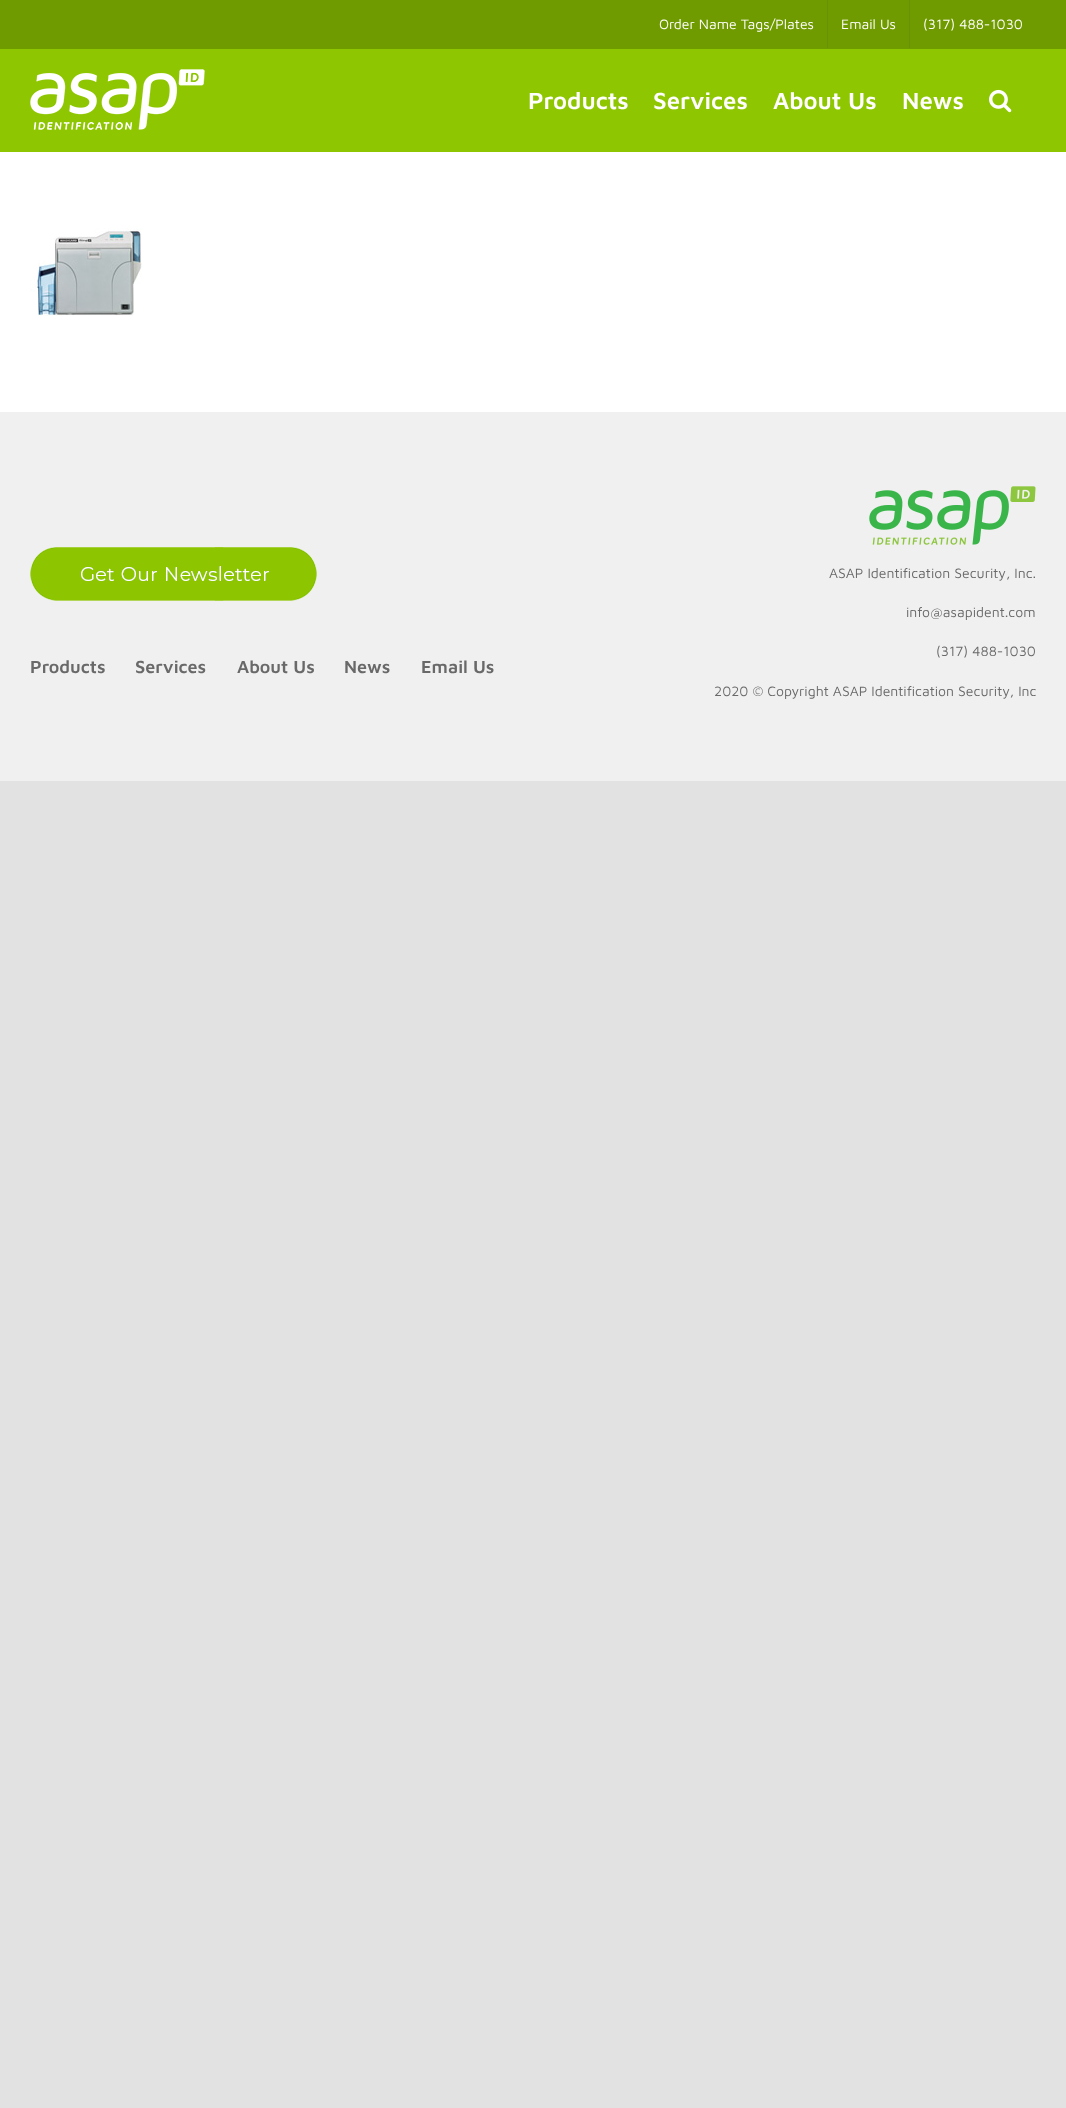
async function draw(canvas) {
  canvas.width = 1066;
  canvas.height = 2108;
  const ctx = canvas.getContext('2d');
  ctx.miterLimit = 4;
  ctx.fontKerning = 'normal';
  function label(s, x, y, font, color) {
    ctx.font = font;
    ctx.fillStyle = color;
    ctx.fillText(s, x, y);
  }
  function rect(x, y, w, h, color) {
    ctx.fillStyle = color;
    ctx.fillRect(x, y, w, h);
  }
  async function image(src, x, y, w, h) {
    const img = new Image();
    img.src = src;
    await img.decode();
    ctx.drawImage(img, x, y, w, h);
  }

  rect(0, 0, 1066, 2108, '#e2e2e2');
  rect(0, 152, 1066, 260, '#fff');
  rect(0, 0, 1066, 49, '#709b00');
  label('Order Name Tags/Plates', 659, 29, '14px Maven Pro', '#fff');
  rect(827, 0, 1, 48, '#699200');
  label('Email Us', 841, 29, '14px Maven Pro', '#fff');
  rect(909, 0, 1, 48, '#699200');
  label('(317) 488-1030', 923, 29, '14px Maven Pro', '#fff');
  rect(0, 49, 1066, 103, '#8ec601');
  await image('assets/img1.png', 30, 69, 175, 61);
  label('Products', 528, 109, '600 24px Maven Pro', '#fff');
  label('Services', 653, 109, '600 24px Maven Pro', '#fff');
  label('About Us', 773, 109, '600 24px Maven Pro', '#fff');
  label('News', 902, 109, '600 24px Maven Pro', '#fff');
  await image('assets/img2.png', 989, 89, 23, 24);
  await image('assets/img3.png', 30, 228, 112, 88);
  rect(0, 412, 1066, 369, '#f0f0f0');
  await image('assets/img4.png', 30, 547, 287, 54);
  label('Products', 30, 673, '600 18px Maven Pro', '#696969');
  label('Services', 135, 673, '600 18px Maven Pro', '#696969');
  label('About Us', 237, 673, '600 18px Maven Pro', '#696969');
  label('News', 344, 673, '600 18px Maven Pro', '#696969');
  label('Email Us', 421, 673, '600 18px Maven Pro', '#696969');
  await image('assets/img5.png', 869, 486, 167, 59);
  label('ASAP Identification Security, Inc.', 829, 578, '14px Maven Pro', '#696969');
  label('info@asapident.com', 906, 617, '14px Maven Pro', '#696969');
  label('(317) 488-1030', 936, 656, '14px Maven Pro', '#696969');
  label('2020 © Copyright ASAP Identification Security, Inc', 714, 696, '14px Maven Pro', '#696969');
}

draw(document.querySelector('canvas'));
